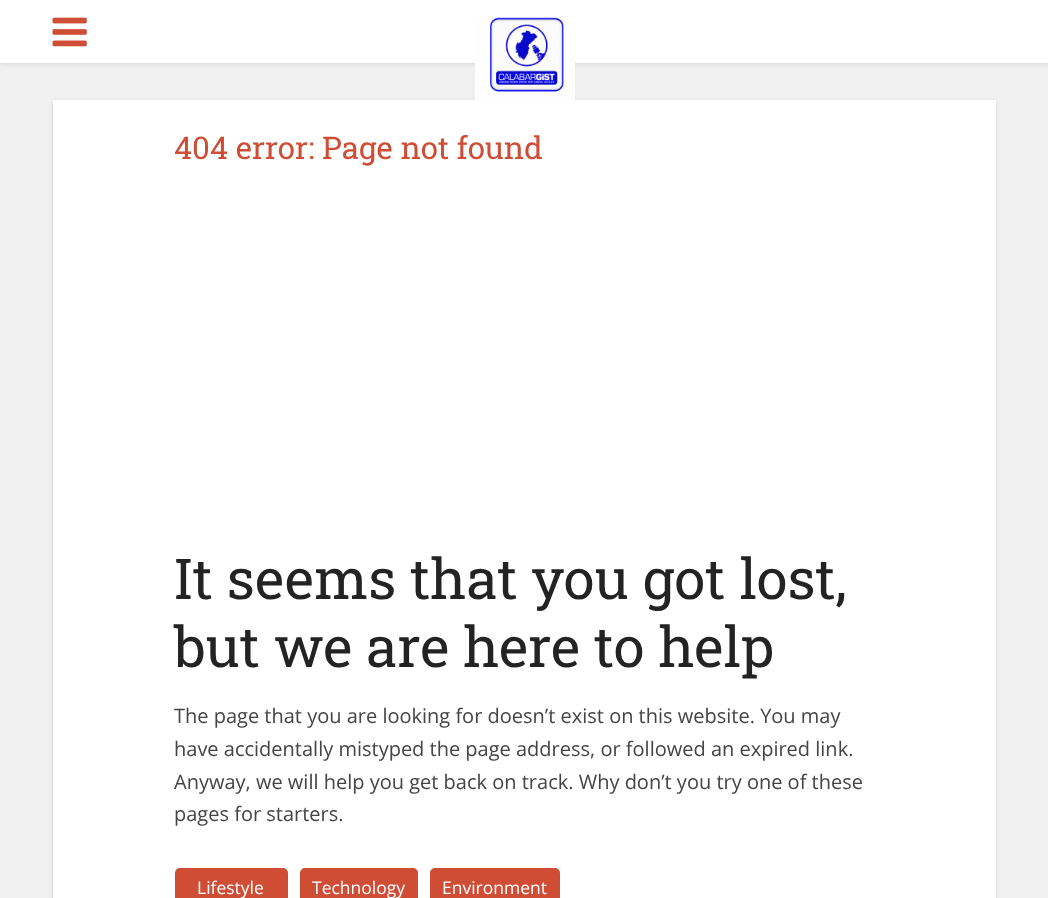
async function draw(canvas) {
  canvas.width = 1048;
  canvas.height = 898;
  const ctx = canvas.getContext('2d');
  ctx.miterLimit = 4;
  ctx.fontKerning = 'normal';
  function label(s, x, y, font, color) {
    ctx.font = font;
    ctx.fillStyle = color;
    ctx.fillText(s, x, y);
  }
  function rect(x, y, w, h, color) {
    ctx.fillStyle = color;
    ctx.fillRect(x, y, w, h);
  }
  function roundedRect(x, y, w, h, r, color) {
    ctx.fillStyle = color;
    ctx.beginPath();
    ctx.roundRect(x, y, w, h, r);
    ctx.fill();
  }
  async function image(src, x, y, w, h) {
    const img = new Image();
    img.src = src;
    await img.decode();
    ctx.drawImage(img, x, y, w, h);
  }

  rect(0, 0, 1048, 898, '#f0f0f0');
  ctx.fillStyle = '#0000001a';
  ctx.filter = 'blur(2px)';
  ctx.beginPath();
  ctx.rect(0, 1, 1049, 63);
  ctx.fill();
  ctx.filter = 'none';
  rect(0, 0, 1048, 63, '#fff');
  await image('assets/img1.png', 52, 17, 35, 30);
  ctx.fillStyle = '#0000001a';
  ctx.filter = 'blur(2px)';
  ctx.beginPath();
  ctx.rect(53, 101, 943, 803);
  ctx.fill();
  ctx.filter = 'none';
  await image('assets/img2.png', 475, 17, 100, 83);
  rect(53, 100, 943, 798, '#fff');
  label('404 error: Page not found', 174, 159, '31.25px Roboto Slab', '#cf4d35');
  label('It seems that you got lost,', 174, 599, '56.25px Roboto Slab', '#232323');
  label('but we are here to help', 174, 667, '56.25px Roboto Slab', '#232323');
  label('The page that you are looking for doesn’t exist on this website. You may', 174, 723, '20px Open Sans', '#444');
  label('have accidentally mistyped the page address, or followed an expired link.', 174, 756, '20px Open Sans', '#444');
  label('Anyway, we will help you get back on track. Why don’t you try one of these', 174, 789, '20px Open Sans', '#444');
  label('pages for starters.', 174, 821, '20px Open Sans', '#444');
  roundedRect(175, 868, 113, 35, 5, '#cf4d35');
  label('Lifestyle', 197, 894, '17.5px Open Sans', '#fff');
  roundedRect(300, 868, 118, 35, 5, '#cf4d35');
  label('Technology', 312, 894, '17.5px Open Sans', '#fff');
  roundedRect(430, 868, 130, 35, 5, '#cf4d35');
  label('Environment', 442, 894, '17.5px Open Sans', '#fff');
}

draw(document.querySelector('canvas'));
